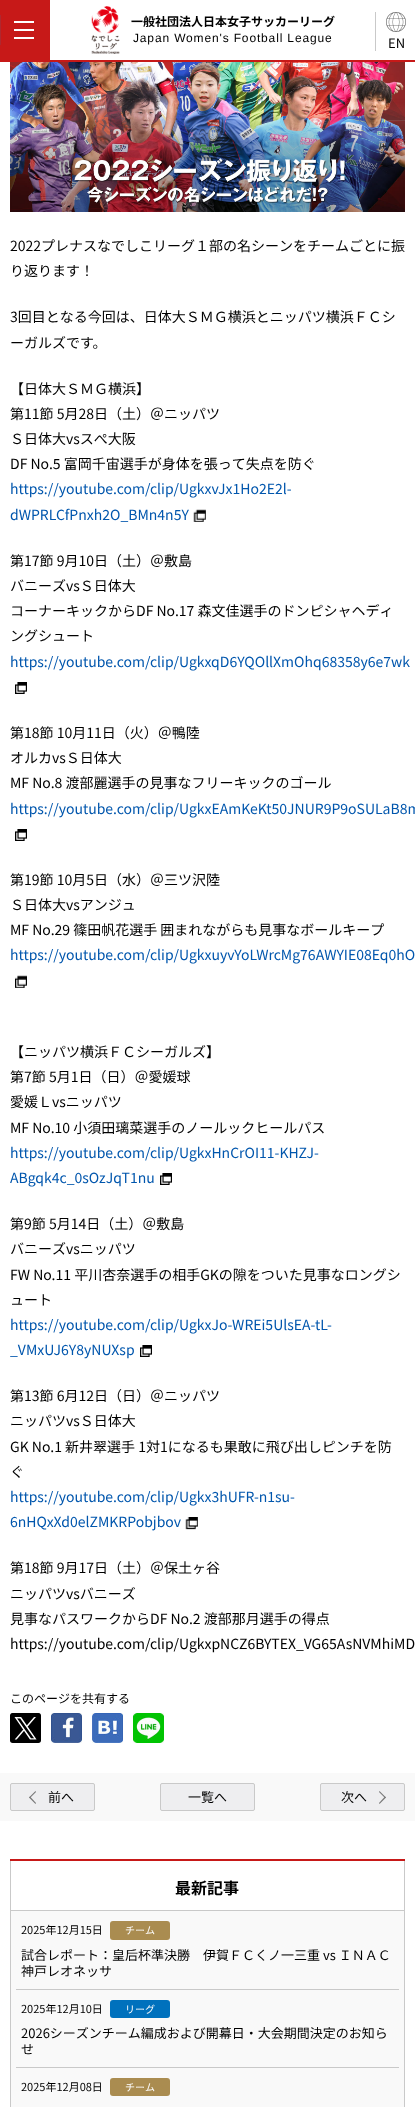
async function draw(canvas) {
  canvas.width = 415;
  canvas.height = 2107;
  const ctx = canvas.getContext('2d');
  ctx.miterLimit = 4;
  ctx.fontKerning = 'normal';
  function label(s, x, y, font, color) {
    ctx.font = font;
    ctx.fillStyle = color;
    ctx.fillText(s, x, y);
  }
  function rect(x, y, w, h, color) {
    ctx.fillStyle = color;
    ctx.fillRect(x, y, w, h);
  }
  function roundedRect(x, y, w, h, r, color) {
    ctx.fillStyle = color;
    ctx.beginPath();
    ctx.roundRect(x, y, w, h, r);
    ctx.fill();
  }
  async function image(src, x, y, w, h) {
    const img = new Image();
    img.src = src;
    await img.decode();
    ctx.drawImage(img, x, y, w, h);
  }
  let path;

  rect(0, 0, 415, 2107, '#fff');
  rect(0, 60, 415, 2, '#c71918');
  rect(0, 0, 50, 60, '#c71918');
  rect(0, 15, 1, 30, '#af282f');
  rect(14, 21, 20, 2, '#fff');
  rect(14, 29, 20, 2, '#fff');
  rect(14, 37, 20, 2, '#fff');
  await image('assets/img1.png', 91, 6, 29, 48);
  label('一般社団法人日本女子サッカーリーグ', 131, 26, 'bold 12px Noto Sans JP', '#000');
  ctx.letterSpacing = '0.85px';
  label('Japan Women\'s Football League', 133, 42, '12px Liberation Sans', '#000');
  rect(375, 12, 1, 39, '#c9c9c9');
  await image('assets/img2.png', 386, 12, 20, 20);
  ctx.letterSpacing = '0px';
  label('EN', 388, 48, '13px Noto Sans JP', '#000');
  await image('assets/img3.png', 10, 62, 395, 150);
  label('2022プレナスなでしこリーグ１部の名シーンをチームごとに振', 10, 251, '14px Noto Sans JP', '#000');
  label('り返ります！', 10, 276, '14px Noto Sans JP', '#000');
  label('3回目となる今回は、日体大ＳＭＧ横浜とニッパツ横浜ＦＣシ', 10, 322, '14px Noto Sans JP', '#000');
  label('ーガルズです。', 10, 348, '14px Noto Sans JP', '#000');
  label('【日体大ＳＭＧ横浜】', 10, 394, '14px Noto Sans JP', '#000');
  label('第11節 5月28日（土）＠ニッパツ', 10, 419, '14px Noto Sans JP', '#000');
  label('Ｓ日体大vsスぺ大阪', 10, 444, '14px Noto Sans JP', '#000');
  label('DF No.5 富岡千宙選手が身体を張って失点を防ぐ', 10, 469, '14px Noto Sans JP', '#000');
  label('https://youtube.com/clip/UgkxvJx1Ho2E2l-', 10, 494, '14px Noto Sans JP', '#0056ad');
  label('dWPRLCfPnxh2O_BMn4n5Y', 10, 520, '14px Noto Sans JP', '#0056ad');
  await image('assets/img4.png', 193, 509, 13, 13);
  label('第17節 9月10日（土）＠敷島', 10, 566, '14px Noto Sans JP', '#000');
  label('バニーズvsＳ日体大', 10, 591, '14px Noto Sans JP', '#000');
  label('コーナーキックからDF No.17 森文佳選手のドンピシャヘディ', 10, 616, '14px Noto Sans JP', '#000');
  label('ングシュート', 10, 641, '14px Noto Sans JP', '#000');
  label('https://youtube.com/clip/UgkxqD6YQOllXmOhq68358y6e7wk', 10, 667, '14px Noto Sans JP', '#0056ad');
  await image('assets/img5.png', 15, 682, 12, 12);
  label('第18節 10月11日（火）＠鴨陸', 10, 738, '14px Noto Sans JP', '#000');
  label('オルカvsＳ日体大', 10, 763, '14px Noto Sans JP', '#000');
  label('MF No.8 渡部麗選手の見事なフリーキックのゴール', 10, 788, '14px Noto Sans JP', '#000');
  label('https://youtube.com/clip/UgkxEAmKeKt50JNUR9P9oSULaB8m', 10, 814, '14px Noto Sans JP', '#0056ad');
  await image('assets/img5.png', 15, 829, 12, 12);
  label('第19節 10月5日（水）＠三ツ沢陸', 10, 885, '14px Noto Sans JP', '#000');
  label('Ｓ日体大vsアンジュ', 10, 910, '14px Noto Sans JP', '#000');
  label('MF No.29 篠田帆花選手 囲まれながらも見事なボールキープ', 10, 935, '14px Noto Sans JP', '#000');
  label('https://youtube.com/clip/UgkxuyvYoLWrcMg76AWYIE08Eq0hO', 10, 960, '14px Noto Sans JP', '#0056ad');
  await image('assets/img6.png', 15, 975, 12, 13);
  label('【ニッパツ横浜ＦＣシーガルズ】', 10, 1057, '14px Noto Sans JP', '#000');
  label('第7節 5月1日（日）＠愛媛球', 10, 1082, '14px Noto Sans JP', '#000');
  label('愛媛Ｌvsニッパツ', 10, 1107, '14px Noto Sans JP', '#000');
  label('MF No.10 小須田璃菜選手のノールックヒールパス', 10, 1133, '14px Noto Sans JP', '#000');
  label('https://youtube.com/clip/UgkxHnCrOI11-KHZJ-', 10, 1158, '14px Noto Sans JP', '#0056ad');
  label('ABgqk4c_0sOzJqT1nu', 10, 1183, '14px Noto Sans JP', '#0056ad');
  await image('assets/img5.png', 160, 1173, 12, 12);
  label('第9節 5月14日（土）＠敷島', 10, 1229, '14px Noto Sans JP', '#000');
  label('バニーズvsニッパツ', 10, 1254, '14px Noto Sans JP', '#000');
  label('FW No.11 平川杏奈選手の相手GKの隙をついた見事なロングシ', 10, 1280, '14px Noto Sans JP', '#000');
  label('ュート', 10, 1305, '14px Noto Sans JP', '#000');
  label('https://youtube.com/clip/UgkxJo-WREi5UlsEA-tL-', 10, 1330, '14px Noto Sans JP', '#0056ad');
  label('_VMxUJ6Y8yNUXsp', 10, 1355, '14px Noto Sans JP', '#0056ad');
  await image('assets/img7.png', 140, 1345, 12, 12);
  label('第13節 6月12日（日）＠ニッパツ', 10, 1401, '14px Noto Sans JP', '#000');
  label('ニッパツvsＳ日体大', 10, 1426, '14px Noto Sans JP', '#000');
  label('GK No.1 新井翠選手 1対1になるも果敢に飛び出しピンチを防', 10, 1452, '14px Noto Sans JP', '#000');
  label('ぐ', 10, 1477, '14px Noto Sans JP', '#000');
  label('https://youtube.com/clip/Ugkx3hUFR-n1su-', 10, 1502, '14px Noto Sans JP', '#0056ad');
  label('6nHQxXd0elZMKRPobjbov', 10, 1527, '14px Noto Sans JP', '#0056ad');
  await image('assets/img8.png', 185, 1517, 13, 13);
  label('第18節 9月17日（土）＠保土ヶ谷', 10, 1573, '14px Noto Sans JP', '#000');
  label('ニッパツvsバニーズ', 10, 1599, '14px Noto Sans JP', '#000');
  label('見事なパスワークからDF No.2 渡部那月選手の得点', 10, 1624, '14px Noto Sans JP', '#000');
  label('https://youtube.com/clip/UgkxpNCZ6BYTEX_VG65AsNVMhiMD', 10, 1649, '14px Noto Sans JP', '#000');
  label('このページを共有する', 10, 1703, '12px Noto Sans JP', '#000');
  await image('assets/img9.png', 10, 1713, 31, 30);
  await image('assets/img10.png', 51, 1713, 31, 30);
  await image('assets/img11.png', 92, 1713, 31, 30);
  await image('assets/img12.png', 133, 1713, 31, 30);
  rect(0, 1773, 415, 48, '#f9f9f9');
  ctx.fillStyle = '#eeeef0';
  ctx.beginPath();
  ctx.roundRect(10.5, 1783.5, 84, 27, 1.5);
  ctx.fill();
  ctx.strokeStyle = '#c9c9c9';
  ctx.stroke();
  ctx.fillStyle = '#777';
  path = new Path2D('M30 1796.5L36 1803L35.5 1804L29 1797.5Z');
  ctx.fill(path);
  path = new Path2D('M35.5 1791L36 1792L30 1798L29 1797.5Z');
  ctx.fill(path);
  label('前へ', 48, 1802, '13px Noto Sans JP', '#000');
  ctx.fillStyle = '#eeeef0';
  ctx.beginPath();
  ctx.roundRect(160.5, 1783.5, 94, 27, 1.5);
  ctx.fill();
  ctx.stroke();
  label('一覧へ', 188, 1802, '13px Noto Sans JP', '#000');
  ctx.fillStyle = '#eeeef0';
  ctx.beginPath();
  ctx.roundRect(320.5, 1783.5, 84, 27, 1.5);
  ctx.fill();
  ctx.stroke();
  label('次へ', 341, 1802, '13px Noto Sans JP', '#000');
  ctx.fillStyle = '#777';
  path = new Path2D('M379.5 1791L386 1797.5L385 1798L379 1792Z');
  ctx.fill(path);
  path = new Path2D('M385 1796.5L386 1797.5L379.5 1804L379 1803Z');
  ctx.fill(path);
  rect(404, 1861, 1, 246, '#c9c9c9');
  rect(10, 1861, 1, 246, '#c9c9c9');
  rect(10, 1859, 395, 2, '#c71918');
  rect(11, 1910, 393, 1, '#c9c9c9');
  label('最新記事', 175, 1894, 'bold 16px Noto Sans JP', '#000');
  rect(11, 1911, 393, 196, '#f9f9f9');
  rect(16, 1989, 383, 1, '#c9c9c9');
  label('2025年12月15日', 21, 1934, '11px Noto Sans JP', '#000');
  roundedRect(110, 1921, 60, 19, 3, '#aa8c50');
  label('チーム', 125, 1934, '10px Noto Sans JP', '#fff');
  label('試合レポート：皇后杯準決勝　伊賀ＦＣくノ一三重 vs ＩＮＡＣ', 21, 1960, '13px Noto Sans JP', '#000');
  label('神戸レオネッサ', 21, 1976, '13px Noto Sans JP', '#000');
  rect(16, 2067, 383, 1, '#c9c9c9');
  label('2025年12月10日', 21, 2013, '11px Noto Sans JP', '#000');
  roundedRect(110, 2000, 60, 18, 3, '#0071bd');
  label('リーグ', 125, 2013, '10px Noto Sans JP', '#fff');
  label('2026シーズンチーム編成および開幕日・大会期間決定のお知ら', 21, 2038, '13px Noto Sans JP', '#000');
  label('せ', 21, 2054, '13px Noto Sans JP', '#000');
  label('2025年12月08日', 21, 2091, '11px Noto Sans JP', '#000');
  roundedRect(110, 2078, 60, 18, 3, '#aa8c50');
  label('チーム', 125, 2091, '10px Noto Sans JP', '#fff');
}

draw(document.querySelector('canvas'));
